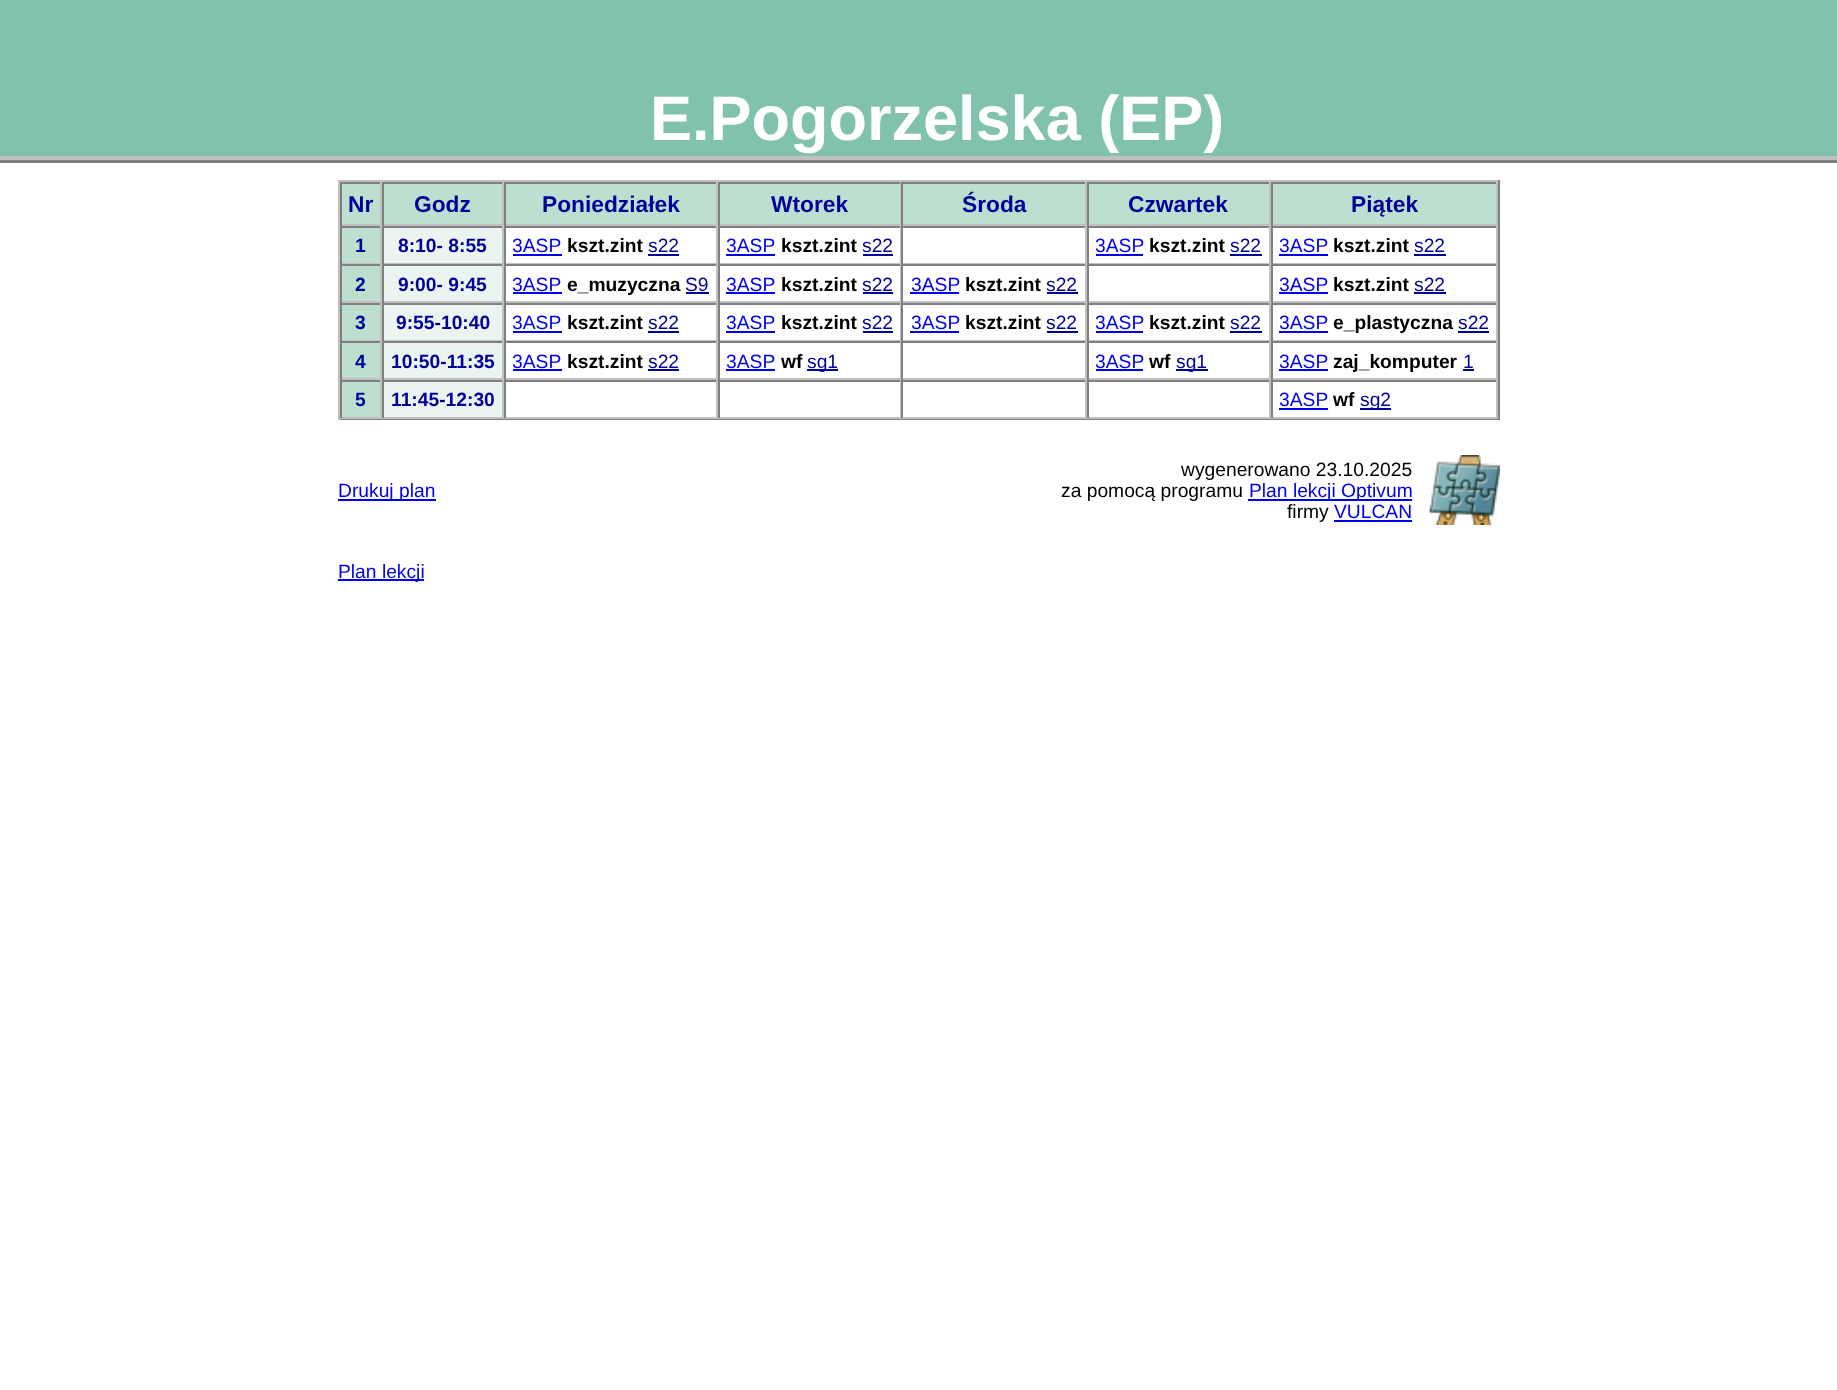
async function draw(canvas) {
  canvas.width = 1837;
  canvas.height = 1390;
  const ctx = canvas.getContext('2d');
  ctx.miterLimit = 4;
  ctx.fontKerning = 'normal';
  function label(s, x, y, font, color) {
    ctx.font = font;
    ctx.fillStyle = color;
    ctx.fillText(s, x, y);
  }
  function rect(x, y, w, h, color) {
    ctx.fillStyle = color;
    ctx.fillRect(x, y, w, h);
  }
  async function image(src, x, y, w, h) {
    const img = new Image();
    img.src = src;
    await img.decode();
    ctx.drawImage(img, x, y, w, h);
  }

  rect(0, 0, 1837, 1390, '#fff');
  rect(0, 0, 1837, 156, '#80c2ab');
  rect(0, 160, 1837, 3, '#808080');
  rect(0, 156, 1837, 4, '#c0c0c0');
  label('E.Pogorzelska (EP)', 650, 140, 'bold 63px Liberation Sans', '#fff');
  rect(338, 180, 1162, 2, '#c0c0c0');
  rect(1498, 180, 2, 240, '#808080');
  rect(338, 418, 1162, 2, '#808080');
  rect(338, 180, 2, 240, '#c0c0c0');
  rect(342, 184, 38, 40, '#bddfd0');
  rect(340, 182, 1158, 2, '#808080');
  rect(380, 182, 2, 44, '#c0c0c0');
  rect(340, 224, 42, 2, '#c0c0c0');
  rect(340, 182, 2, 44, '#808080');
  label('Nr', 348, 212, 'bold 22.75px Liberation Sans', '#009');
  rect(384, 184, 118, 40, '#bddfd0');
  rect(502, 182, 2, 44, '#c0c0c0');
  rect(382, 224, 122, 2, '#c0c0c0');
  rect(382, 182, 2, 44, '#808080');
  label('Godz', 414, 212, 'bold 22.75px Liberation Sans', '#009');
  rect(506, 184, 210, 40, '#bddfd0');
  rect(716, 182, 2, 44, '#c0c0c0');
  rect(504, 224, 214, 2, '#c0c0c0');
  rect(504, 182, 2, 44, '#808080');
  label('Poniedziałek', 542, 212, 'bold 22.75px Liberation Sans', '#009');
  rect(720, 184, 180, 40, '#bddfd0');
  rect(900, 182, 1, 44, '#c0c0c0');
  rect(718, 224, 183, 2, '#c0c0c0');
  rect(718, 182, 2, 44, '#808080');
  label('Wtorek', 771, 212, 'bold 22.75px Liberation Sans', '#009');
  rect(903, 184, 182, 40, '#bddfd0');
  rect(1085, 182, 2, 44, '#c0c0c0');
  rect(901, 224, 186, 2, '#c0c0c0');
  rect(901, 182, 2, 44, '#808080');
  label('Środa', 962, 212, 'bold 22.75px Liberation Sans', '#009');
  rect(1089, 184, 180, 40, '#bddfd0');
  rect(1269, 182, 2, 44, '#c0c0c0');
  rect(1087, 224, 184, 2, '#c0c0c0');
  rect(1087, 182, 2, 44, '#808080');
  label('Czwartek', 1128, 212, 'bold 22.75px Liberation Sans', '#009');
  rect(1273, 184, 223, 40, '#bddfd0');
  rect(1496, 182, 2, 44, '#c0c0c0');
  rect(1271, 224, 227, 2, '#c0c0c0');
  rect(1271, 182, 2, 44, '#808080');
  label('Piątek', 1351, 212, 'bold 22.75px Liberation Sans', '#009');
  rect(342, 228, 38, 35, '#bddfd0');
  rect(340, 226, 1158, 2, '#808080');
  rect(380, 226, 2, 38, '#c0c0c0');
  rect(340, 263, 42, 1, '#c0c0c0');
  rect(340, 226, 2, 38, '#808080');
  label('1', 355, 252, 'bold 19.25px Liberation Sans', '#009');
  rect(384, 228, 118, 35, '#eaf4f0');
  rect(502, 226, 2, 38, '#c0c0c0');
  rect(382, 263, 122, 1, '#c0c0c0');
  rect(382, 226, 2, 38, '#808080');
  label('8:10- 8:55', 398, 252, 'bold 19.25px Liberation Sans', '#009');
  rect(716, 226, 2, 38, '#c0c0c0');
  rect(504, 263, 214, 1, '#c0c0c0');
  rect(504, 226, 2, 38, '#808080');
  label('3ASP', 512, 252, '19.25px Liberation Sans', '#00e');
  rect(513, 254, 49, 2, '#00e');
  label('kszt.zint', 567, 252, 'bold 19.25px Liberation Sans', '#000');
  label('s22', 648, 252, '19.25px Liberation Sans', '#009');
  rect(648, 254, 31, 2, '#009');
  rect(900, 226, 1, 38, '#c0c0c0');
  rect(718, 263, 183, 1, '#c0c0c0');
  rect(718, 226, 2, 38, '#808080');
  label('3ASP', 726, 252, '19.25px Liberation Sans', '#00e');
  rect(726, 254, 49, 2, '#00e');
  label('kszt.zint', 781, 252, 'bold 19.25px Liberation Sans', '#000');
  label('s22', 862, 252, '19.25px Liberation Sans', '#009');
  rect(863, 254, 30, 2, '#009');
  rect(1085, 226, 2, 38, '#c0c0c0');
  rect(901, 263, 186, 1, '#c0c0c0');
  rect(901, 226, 2, 38, '#808080');
  rect(1269, 226, 2, 38, '#c0c0c0');
  rect(1087, 263, 184, 1, '#c0c0c0');
  rect(1087, 226, 2, 38, '#808080');
  label('3ASP', 1095, 252, '19.25px Liberation Sans', '#00e');
  rect(1096, 254, 47, 2, '#00e');
  label('kszt.zint', 1149, 252, 'bold 19.25px Liberation Sans', '#000');
  label('s22', 1230, 252, '19.25px Liberation Sans', '#009');
  rect(1230, 254, 32, 2, '#009');
  rect(1496, 226, 2, 38, '#c0c0c0');
  rect(1271, 263, 227, 1, '#c0c0c0');
  rect(1271, 226, 2, 38, '#808080');
  label('3ASP', 1279, 252, '19.25px Liberation Sans', '#00e');
  rect(1279, 254, 49, 2, '#00e');
  label('kszt.zint', 1333, 252, 'bold 19.25px Liberation Sans', '#000');
  label('s22', 1414, 252, '19.25px Liberation Sans', '#009');
  rect(1414, 254, 32, 2, '#009');
  rect(342, 266, 38, 35, '#bddfd0');
  rect(340, 264, 1158, 2, '#808080');
  rect(380, 264, 2, 39, '#c0c0c0');
  rect(340, 301, 42, 2, '#c0c0c0');
  rect(340, 264, 2, 39, '#808080');
  label('2', 355, 291, 'bold 19.25px Liberation Sans', '#009');
  rect(384, 266, 118, 35, '#eaf4f0');
  rect(502, 264, 2, 39, '#c0c0c0');
  rect(382, 301, 122, 2, '#c0c0c0');
  rect(382, 264, 2, 39, '#808080');
  label('9:00- 9:45', 398, 291, 'bold 19.25px Liberation Sans', '#009');
  rect(716, 264, 2, 39, '#c0c0c0');
  rect(504, 301, 214, 2, '#c0c0c0');
  rect(504, 264, 2, 39, '#808080');
  label('3ASP', 512, 291, '19.25px Liberation Sans', '#00e');
  rect(513, 292, 49, 2, '#00e');
  label('e_muzyczna', 567, 291, 'bold 19.25px Liberation Sans', '#000');
  label('S9', 685, 291, '19.25px Liberation Sans', '#009');
  rect(686, 292, 23, 2, '#009');
  rect(900, 264, 1, 39, '#c0c0c0');
  rect(718, 301, 183, 2, '#c0c0c0');
  rect(718, 264, 2, 39, '#808080');
  label('3ASP', 726, 291, '19.25px Liberation Sans', '#00e');
  rect(726, 292, 49, 2, '#00e');
  label('kszt.zint', 781, 291, 'bold 19.25px Liberation Sans', '#000');
  label('s22', 862, 291, '19.25px Liberation Sans', '#009');
  rect(863, 292, 30, 2, '#009');
  rect(1085, 264, 2, 39, '#c0c0c0');
  rect(901, 301, 186, 2, '#c0c0c0');
  rect(901, 264, 2, 39, '#808080');
  label('3ASP', 911, 291, '19.25px Liberation Sans', '#00e');
  rect(910, 292, 49, 2, '#00e');
  label('kszt.zint', 965, 291, 'bold 19.25px Liberation Sans', '#000');
  label('s22', 1046, 291, '19.25px Liberation Sans', '#009');
  rect(1047, 292, 31, 2, '#009');
  rect(1269, 264, 2, 39, '#c0c0c0');
  rect(1087, 301, 184, 2, '#c0c0c0');
  rect(1087, 264, 2, 39, '#808080');
  rect(1496, 264, 2, 39, '#c0c0c0');
  rect(1271, 301, 227, 2, '#c0c0c0');
  rect(1271, 264, 2, 39, '#808080');
  label('3ASP', 1279, 291, '19.25px Liberation Sans', '#00e');
  rect(1279, 292, 49, 2, '#00e');
  label('kszt.zint', 1333, 291, 'bold 19.25px Liberation Sans', '#000');
  label('s22', 1414, 291, '19.25px Liberation Sans', '#009');
  rect(1414, 292, 32, 2, '#009');
  rect(342, 305, 38, 35, '#bddfd0');
  rect(340, 303, 1158, 2, '#808080');
  rect(380, 303, 2, 38, '#c0c0c0');
  rect(340, 340, 42, 1, '#c0c0c0');
  rect(340, 303, 2, 38, '#808080');
  label('3', 355, 329, 'bold 19.25px Liberation Sans', '#009');
  rect(384, 305, 118, 35, '#eaf4f0');
  rect(502, 303, 2, 38, '#c0c0c0');
  rect(382, 340, 122, 1, '#c0c0c0');
  rect(382, 303, 2, 38, '#808080');
  label('9:55-10:40', 396, 329, 'bold 19.25px Liberation Sans', '#009');
  rect(716, 303, 2, 38, '#c0c0c0');
  rect(504, 340, 214, 1, '#c0c0c0');
  rect(504, 303, 2, 38, '#808080');
  label('3ASP', 512, 329, '19.25px Liberation Sans', '#00e');
  rect(513, 331, 49, 2, '#00e');
  label('kszt.zint', 567, 329, 'bold 19.25px Liberation Sans', '#000');
  label('s22', 648, 329, '19.25px Liberation Sans', '#009');
  rect(648, 331, 31, 2, '#009');
  rect(900, 303, 1, 38, '#c0c0c0');
  rect(718, 340, 183, 1, '#c0c0c0');
  rect(718, 303, 2, 38, '#808080');
  label('3ASP', 726, 329, '19.25px Liberation Sans', '#00e');
  rect(726, 331, 49, 2, '#00e');
  label('kszt.zint', 781, 329, 'bold 19.25px Liberation Sans', '#000');
  label('s22', 862, 329, '19.25px Liberation Sans', '#009');
  rect(863, 331, 30, 2, '#009');
  rect(1085, 303, 2, 38, '#c0c0c0');
  rect(901, 340, 186, 1, '#c0c0c0');
  rect(901, 303, 2, 38, '#808080');
  label('3ASP', 911, 329, '19.25px Liberation Sans', '#00e');
  rect(910, 331, 49, 2, '#00e');
  label('kszt.zint', 965, 329, 'bold 19.25px Liberation Sans', '#000');
  label('s22', 1046, 329, '19.25px Liberation Sans', '#009');
  rect(1047, 331, 31, 2, '#009');
  rect(1269, 303, 2, 38, '#c0c0c0');
  rect(1087, 340, 184, 1, '#c0c0c0');
  rect(1087, 303, 2, 38, '#808080');
  label('3ASP', 1095, 329, '19.25px Liberation Sans', '#00e');
  rect(1096, 331, 47, 2, '#00e');
  label('kszt.zint', 1149, 329, 'bold 19.25px Liberation Sans', '#000');
  label('s22', 1230, 329, '19.25px Liberation Sans', '#009');
  rect(1230, 331, 32, 2, '#009');
  rect(1496, 303, 2, 38, '#c0c0c0');
  rect(1271, 340, 227, 1, '#c0c0c0');
  rect(1271, 303, 2, 38, '#808080');
  label('3ASP', 1279, 329, '19.25px Liberation Sans', '#00e');
  rect(1279, 331, 49, 2, '#00e');
  label('e_plastyczna', 1333, 329, 'bold 19.25px Liberation Sans', '#000');
  label('s22', 1458, 329, '19.25px Liberation Sans', '#009');
  rect(1458, 331, 31, 2, '#009');
  rect(342, 343, 38, 35, '#bddfd0');
  rect(340, 341, 1158, 2, '#808080');
  rect(380, 341, 2, 39, '#c0c0c0');
  rect(340, 378, 42, 2, '#c0c0c0');
  rect(340, 341, 2, 39, '#808080');
  label('4', 355, 368, 'bold 19.25px Liberation Sans', '#009');
  rect(384, 343, 118, 35, '#eaf4f0');
  rect(502, 341, 2, 39, '#c0c0c0');
  rect(382, 378, 122, 2, '#c0c0c0');
  rect(382, 341, 2, 39, '#808080');
  label('10:50-11:35', 391, 368, 'bold 19.25px Liberation Sans', '#009');
  rect(716, 341, 2, 39, '#c0c0c0');
  rect(504, 378, 214, 2, '#c0c0c0');
  rect(504, 341, 2, 39, '#808080');
  label('3ASP', 512, 368, '19.25px Liberation Sans', '#00e');
  rect(513, 369, 49, 2, '#00e');
  label('kszt.zint', 567, 368, 'bold 19.25px Liberation Sans', '#000');
  label('s22', 648, 368, '19.25px Liberation Sans', '#009');
  rect(648, 369, 31, 2, '#009');
  rect(900, 341, 1, 39, '#c0c0c0');
  rect(718, 378, 183, 2, '#c0c0c0');
  rect(718, 341, 2, 39, '#808080');
  label('3ASP', 726, 368, '19.25px Liberation Sans', '#00e');
  rect(726, 369, 49, 2, '#00e');
  label('wf', 781, 368, 'bold 19.25px Liberation Sans', '#000');
  rect(807, 369, 31, 2, '#009');
  label('sg1', 807, 368, '19.25px Liberation Sans', '#009');
  rect(1085, 341, 2, 39, '#c0c0c0');
  rect(901, 378, 186, 2, '#c0c0c0');
  rect(901, 341, 2, 39, '#808080');
  rect(1269, 341, 2, 39, '#c0c0c0');
  rect(1087, 378, 184, 2, '#c0c0c0');
  rect(1087, 341, 2, 39, '#808080');
  label('3ASP', 1095, 368, '19.25px Liberation Sans', '#00e');
  rect(1096, 369, 47, 2, '#00e');
  label('wf', 1149, 368, 'bold 19.25px Liberation Sans', '#000');
  rect(1176, 369, 32, 2, '#009');
  label('sg1', 1176, 368, '19.25px Liberation Sans', '#009');
  rect(1496, 341, 2, 39, '#c0c0c0');
  rect(1271, 378, 227, 2, '#c0c0c0');
  rect(1271, 341, 2, 39, '#808080');
  label('3ASP', 1279, 368, '19.25px Liberation Sans', '#00e');
  rect(1279, 369, 49, 2, '#00e');
  label('zaj_komputer', 1333, 368, 'bold 19.25px Liberation Sans', '#000');
  label('1', 1463, 368, '19.25px Liberation Sans', '#009');
  rect(1463, 369, 11, 2, '#009');
  rect(342, 382, 38, 35, '#bddfd0');
  rect(340, 380, 1158, 2, '#808080');
  rect(380, 380, 2, 38, '#c0c0c0');
  rect(340, 417, 42, 2, '#c0c0c0');
  rect(340, 380, 2, 38, '#808080');
  label('5', 355, 406, 'bold 19.25px Liberation Sans', '#009');
  rect(384, 382, 118, 35, '#eaf4f0');
  rect(502, 380, 2, 38, '#c0c0c0');
  rect(382, 417, 122, 2, '#c0c0c0');
  rect(382, 380, 2, 38, '#808080');
  label('11:45-12:30', 391, 406, 'bold 19.25px Liberation Sans', '#009');
  rect(716, 380, 2, 38, '#c0c0c0');
  rect(504, 417, 214, 2, '#c0c0c0');
  rect(504, 380, 2, 38, '#808080');
  rect(900, 380, 1, 38, '#c0c0c0');
  rect(718, 417, 183, 2, '#c0c0c0');
  rect(718, 380, 2, 38, '#808080');
  rect(1085, 380, 2, 38, '#c0c0c0');
  rect(901, 417, 186, 2, '#c0c0c0');
  rect(901, 380, 2, 38, '#808080');
  rect(1269, 380, 2, 38, '#c0c0c0');
  rect(1087, 417, 184, 2, '#c0c0c0');
  rect(1087, 380, 2, 38, '#808080');
  rect(1496, 380, 2, 38, '#c0c0c0');
  rect(1271, 417, 227, 2, '#c0c0c0');
  rect(1271, 380, 2, 38, '#808080');
  label('3ASP', 1279, 406, '19.25px Liberation Sans', '#00e');
  rect(1279, 408, 49, 2, '#00e');
  label('wf', 1333, 406, 'bold 19.25px Liberation Sans', '#000');
  rect(1360, 408, 31, 2, '#009');
  label('sg2', 1360, 406, '19.25px Liberation Sans', '#009');
  rect(338, 499, 98, 2, '#00e');
  label('Drukuj plan', 338, 497, '19.25px Liberation Sans', '#00e');
  label('wygenerowano 23.10.2025', 1181, 476, '19.25px Liberation Sans', '#000');
  label('za pomocą programu', 1061, 497, '19.25px Liberation Sans', '#000');
  rect(1248, 499, 164, 2, '#00e');
  label('Plan lekcji Optivum', 1249, 497, '19.25px Liberation Sans', '#00e');
  label('firmy', 1287, 518, '19.25px Liberation Sans', '#000');
  label('VULCAN', 1334, 518, '19.25px Liberation Sans', '#00e');
  rect(1334, 520, 78, 2, '#00e');
  await image('assets/img1.png', 1429, 455, 71, 70);
  rect(338, 579, 86, 2, '#00e');
  label('Plan lekcji', 338, 578, '19.25px Liberation Sans', '#00e');
}

draw(document.querySelector('canvas'));
